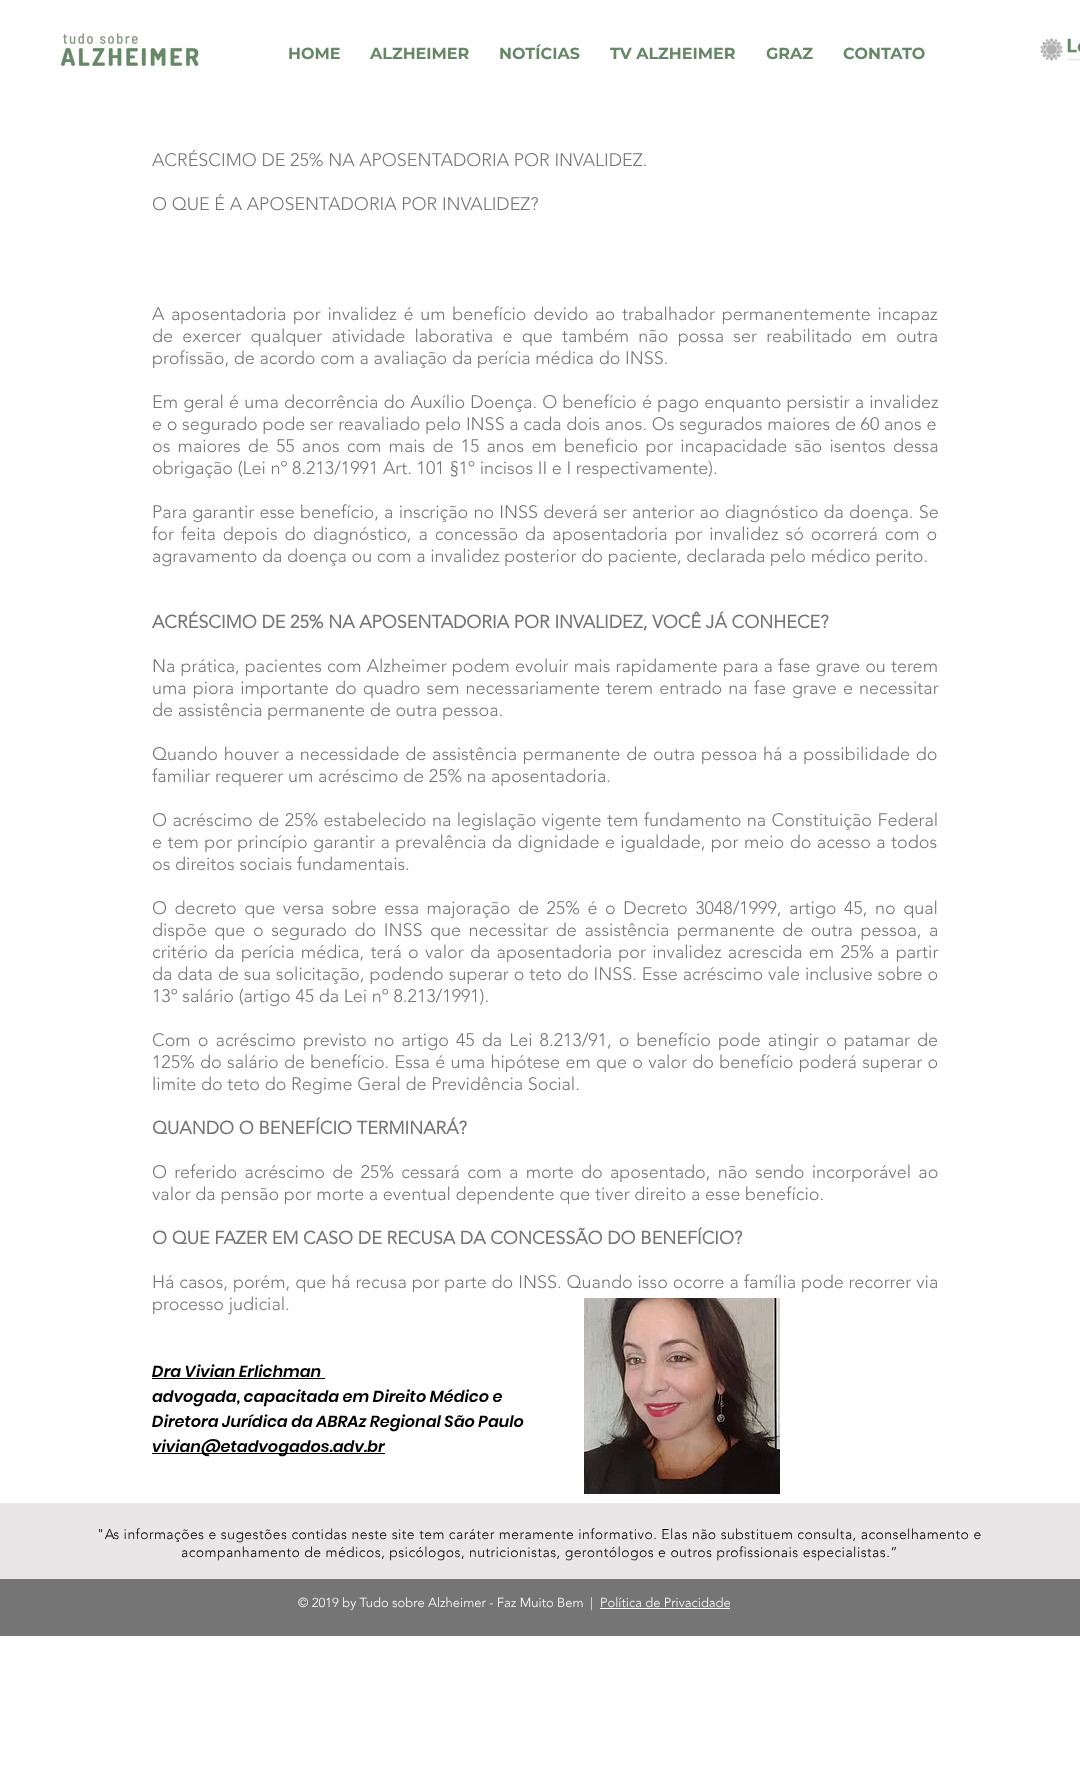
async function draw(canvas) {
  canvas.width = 1080;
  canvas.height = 1766;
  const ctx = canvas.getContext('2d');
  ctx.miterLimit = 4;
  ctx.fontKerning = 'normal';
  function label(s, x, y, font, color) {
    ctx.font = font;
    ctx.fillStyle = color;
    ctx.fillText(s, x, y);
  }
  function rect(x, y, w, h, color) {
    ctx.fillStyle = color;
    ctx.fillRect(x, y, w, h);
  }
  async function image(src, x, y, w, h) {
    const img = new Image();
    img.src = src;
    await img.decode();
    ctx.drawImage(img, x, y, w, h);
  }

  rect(0, 0, 1080, 1766, '#fff');
  await image('assets/img1.png', 60, 33, 139, 34);
  label('HOME', 288, 59, 'bold 16px Montserrat', '#678868');
  label('ALZHEIMER', 370, 59, 'bold 16px Montserrat', '#678868');
  label('NOTÍCIAS', 499, 59, 'bold 16px Montserrat', '#678868');
  label('TV ALZHEIMER', 610, 59, 'bold 16px Montserrat', '#678868');
  label('GRAZ', 766, 59, 'bold 16px Montserrat', '#678868');
  label('CONTATO', 843, 59, 'bold 16px Montserrat', '#678868');
  await image('assets/img2.png', 1040, 38, 40, 23);
  label('ACRÉSCIMO DE 25% NA APOSENTADORIA POR INVALIDEZ.', 152, 166, '300 18px "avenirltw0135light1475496"', '#757575');
  label('O QUE É A APOSENTADORIA POR INVALIDEZ?', 152, 210, '300 18px "avenirltw0135light1475496"', '#757575');
  ctx.wordSpacing = '2px';
  label('A aposentadoria por invalidez é um benefício devido ao trabalhador permanentemente incapaz', 152, 320, '300 18px "avenirltw0135light1475496"', '#757575');
  ctx.wordSpacing = '4.6px';
  label('de exercer qualquer atividade laborativa e que também não possa ser reabilitado em outra', 152, 342, '300 18px "avenirltw0135light1475496"', '#757575');
  ctx.wordSpacing = '0px';
  label('profissão, de acordo com a avaliação da perícia médica do INSS.', 152, 364, '300 18px "avenirltw0135light1475496"', '#757575');
  ctx.wordSpacing = '0.5px';
  label('Em geral é uma decorrência do Auxílio Doença. O benefício é pago enquanto persistir a invalidez', 152, 408, '300 18px "avenirltw0135light1475496"', '#757575');
  ctx.wordSpacing = '0px';
  label('e o segurado pode ser reavaliado pelo INSS a cada dois anos. Os segurados maiores de 60 anos e', 152, 430, '300 18px "avenirltw0135light1475496"', '#757575');
  ctx.wordSpacing = '2.5px';
  label('os maiores de 55 anos com mais de 15 anos em beneficio por incapacidade são isentos dessa', 152, 452, '300 18px "avenirltw0135light1475496"', '#757575');
  ctx.wordSpacing = '0px';
  label('obrigação (Lei nº 8.213/1991 Art. 101 §1º incisos II e I respectivamente).', 152, 474, '300 18px "avenirltw0135light1475496"', '#757575');
  ctx.wordSpacing = '0.5px';
  label('Para garantir esse benefício, a inscrição no INSS deverá ser anterior ao diagnóstico da doença. Se', 152, 518, '300 18px "avenirltw0135light1475496"', '#757575');
  ctx.wordSpacing = '2.25px';
  label('for feita depois do diagnóstico, a concessão da aposentadoria por invalidez só ocorrerá com o', 152, 540, '300 18px "avenirltw0135light1475496"', '#757575');
  ctx.wordSpacing = '0px';
  label('agravamento da doença ou com a invalidez posterior do paciente, declarada pelo médico perito.', 152, 562, '300 18px "avenirltw0135light1475496"', '#757575');
  label('ACRÉSCIMO DE 25% NA APOSENTADORIA POR INVALIDEZ, VOCÊ JÁ CONHECE?', 152, 628, 'bold 18px "avenirltw0135light1475496"', '#757575');
  ctx.wordSpacing = '0.4px';
  label('Na prática, pacientes com Alzheimer podem evoluir mais rapidamente para a fase grave ou terem', 152, 672, '300 18px "avenirltw0135light1475496"', '#757575');
  ctx.wordSpacing = '1.4px';
  label('uma piora importante do quadro sem necessariamente terem entrado na fase grave e necessitar', 152, 694, '300 18px "avenirltw0135light1475496"', '#757575');
  ctx.wordSpacing = '0px';
  label('de assistência permanente de outra pessoa.', 152, 716, '300 18px "avenirltw0135light1475496"', '#757575');
  ctx.wordSpacing = '1.1px';
  label('Quando houver a necessidade de assistência permanente de outra pessoa há a possibilidade do', 152, 760, '300 18px "avenirltw0135light1475496"', '#757575');
  ctx.wordSpacing = '0px';
  label('familiar requerer um acréscimo de 25% na aposentadoria.', 152, 782, '300 18px "avenirltw0135light1475496"', '#757575');
  ctx.wordSpacing = '0.75px';
  label('O acréscimo de 25% estabelecido na legislação vigente tem fundamento na Constituição Federal', 152, 826, '300 18px "avenirltw0135light1475496"', '#757575');
  label('e tem por princípio garantir a prevalência da dignidade e igualdade, por meio do acesso a todos', 152, 848, '300 18px "avenirltw0135light1475496"', '#757575');
  ctx.wordSpacing = '0px';
  label('os direitos sociais fundamentais.', 152, 870, '300 18px "avenirltw0135light1475496"', '#757575');
  ctx.wordSpacing = '2.9px';
  label('O decreto que versa sobre essa majoração de 25% é o Decreto 3048/1999, artigo 45, no qual', 152, 914, '300 18px "avenirltw0135light1475496"', '#757575');
  label('dispõe que o segurado do INSS que necessitar de assistência permanente de outra pessoa, a', 152, 936, '300 18px "avenirltw0135light1475496"', '#757575');
  ctx.wordSpacing = '1.6px';
  label('critério da perícia médica, terá o valor da aposentadoria por invalidez acrescida em 25% a partir', 152, 958, '300 18px "avenirltw0135light1475496"', '#757575');
  ctx.wordSpacing = '0.25px';
  label('da data de sua solicitação, podendo superar o teto do INSS. Esse acréscimo vale inclusive sobre o', 152, 980, '300 18px "avenirltw0135light1475496"', '#757575');
  ctx.wordSpacing = '0px';
  label('13º salário (artigo 45 da Lei nº 8.213/1991).', 152, 1002, '300 18px "avenirltw0135light1475496"', '#757575');
  ctx.wordSpacing = '2.4px';
  label('Com o acréscimo previsto no artigo 45 da Lei 8.213/91, o benefício pode atingir o patamar de', 152, 1046, '300 18px "avenirltw0135light1475496"', '#757575');
  ctx.wordSpacing = '0.6px';
  label('125% do salário de benefício. Essa é uma hipótese em que o valor do benefício poderá superar o', 152, 1068, '300 18px "avenirltw0135light1475496"', '#757575');
  ctx.wordSpacing = '0px';
  label('limite do teto do Regime Geral de Previdência Social.', 152, 1090, '300 18px "avenirltw0135light1475496"', '#757575');
  label('QUANDO O BENEFÍCIO TERMINARÁ?', 152, 1134, 'bold 18px "avenirltw0135light1475496"', '#757575');
  ctx.wordSpacing = '2.6px';
  label('O referido acréscimo de 25% cessará com a morte do aposentado, não sendo incorporável ao', 152, 1178, '300 18px "avenirltw0135light1475496"', '#757575');
  ctx.wordSpacing = '0px';
  label('valor da pensão por morte a eventual dependente que tiver direito a esse benefício.', 152, 1200, '300 18px "avenirltw0135light1475496"', '#757575');
  label('O QUE FAZER EM CASO DE RECUSA DA CONCESSÃO DO BENEFÍCIO?', 152, 1244, 'bold 18px "avenirltw0135light1475496"', '#757575');
  ctx.wordSpacing = '0.25px';
  label('Há casos, porém, que há recusa por parte do INSS. Quando isso ocorre a família pode recorrer via', 152, 1288, '300 18px "avenirltw0135light1475496"', '#757575');
  ctx.wordSpacing = '0px';
  label('processo judicial.', 152, 1310, '300 18px "avenirltw0135light1475496"', '#757575');
  label('Dra Vivian Erlichman', 152, 1377, 'italic 600 16px Poppins', '#000');
  rect(152, 1378, 173, 1, '#000');
  label('advogada, capacitada em Direito Médico e', 152, 1402, 'italic 600 16px Poppins', '#000');
  label('Diretora Jurídica da ABRAz Regional São Paulo', 152, 1427, 'italic 600 16px Poppins', '#000');
  rect(152, 1453, 233, 1, '#000');
  label('vivian@etadvogados.adv.br', 152, 1452, 'italic 600 16px Poppins', '#000');
  await image('assets/img3.png', 584, 1298, 196, 196);
  rect(0, 1503, 1080, 76, '#e8e6e6');
  ctx.letterSpacing = '0.42px';
  label('"As informações e sugestões contidas neste site tem caráter meramente informativo. Elas não substituem consulta, aconselhamento e', 97, 1539, '300 14px "avenirltw0135light1475496"', '#000');
  label('acompanhamento de médicos, psicólogos, nutricionistas, gerontólogos e outros profissionais especialistas.”', 181, 1557, '300 14px "avenirltw0135light1475496"', '#000');
  rect(0, 1579, 1080, 57, '#757575');
  ctx.letterSpacing = '0px';
  label('© 2019 by Tudo sobre Alzheimer - Faz Muito Bem  |', 298, 1607, '300 13px "avenirltw0135light1475496"', '#fff');
  label('Política de Privacidade', 600, 1607, '300 13px "avenirltw0135light1475496"', '#fff');
  rect(600, 1608, 130, 1, '#fff');
}

draw(document.querySelector('canvas'));
